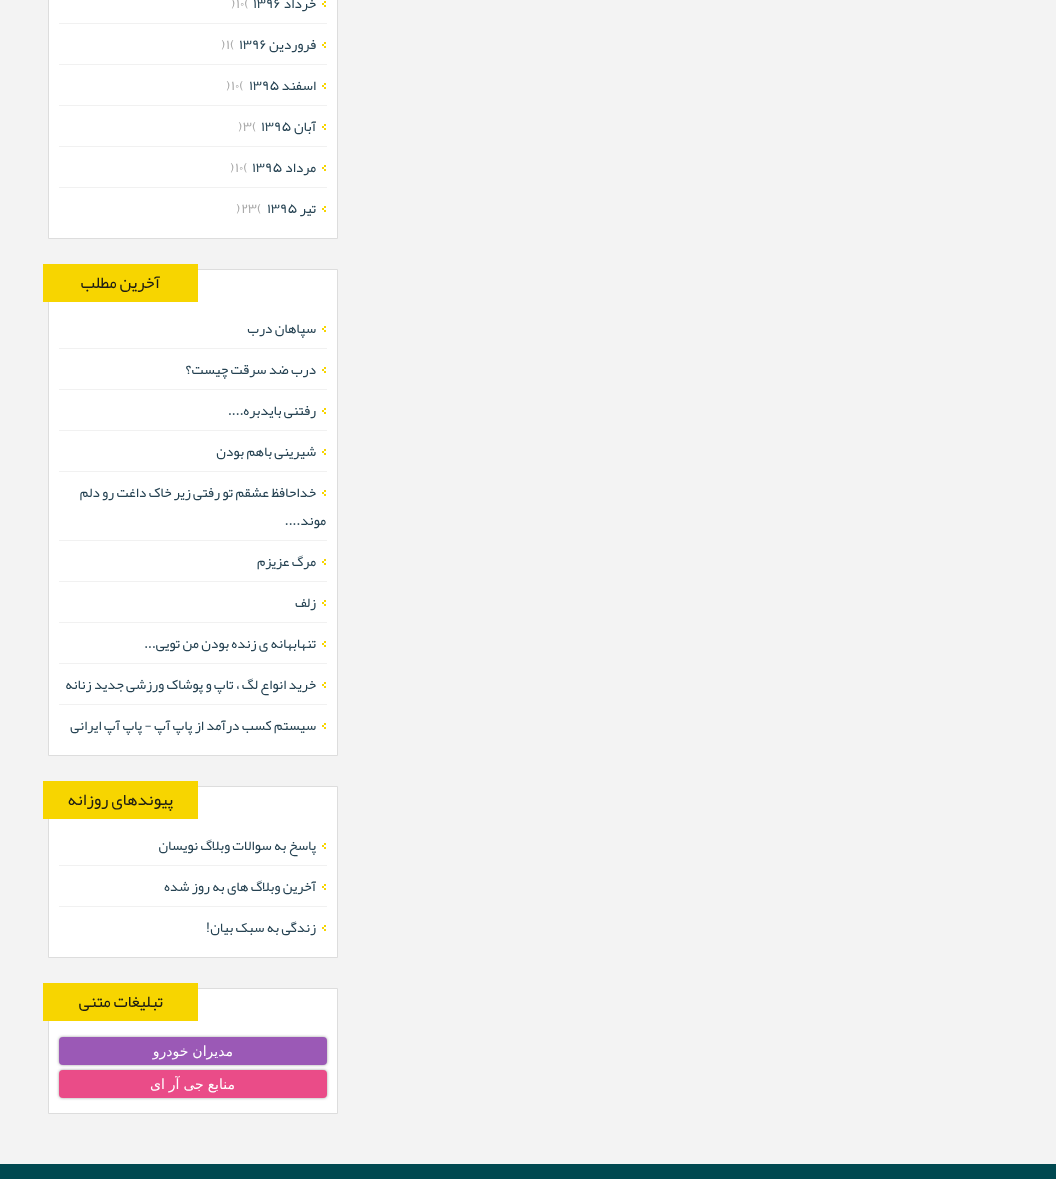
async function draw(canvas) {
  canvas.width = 1056;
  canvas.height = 1179;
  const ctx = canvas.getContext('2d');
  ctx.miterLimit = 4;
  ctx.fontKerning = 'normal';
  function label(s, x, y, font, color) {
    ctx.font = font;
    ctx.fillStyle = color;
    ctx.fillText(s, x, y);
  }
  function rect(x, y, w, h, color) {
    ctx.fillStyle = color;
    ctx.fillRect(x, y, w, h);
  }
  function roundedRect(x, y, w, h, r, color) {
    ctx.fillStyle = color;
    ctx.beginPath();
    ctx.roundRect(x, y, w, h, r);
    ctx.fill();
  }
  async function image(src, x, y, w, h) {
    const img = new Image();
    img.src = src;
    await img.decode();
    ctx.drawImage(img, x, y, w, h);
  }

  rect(0, 0, 1056, 1179, '#f3f3f3');
  ctx.fillStyle = '#fff';
  ctx.beginPath();
  ctx.rect(48.5, -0.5, 289, 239);
  ctx.fill();
  ctx.strokeStyle = '#ddd';
  ctx.stroke();
  rect(59, 23, 268, 1, '#f1f1f1');
  await image('assets/img1.png', 322, 1, 4, 6);
  ctx.direction = 'rtl';
  label('خرداد', 316, 8, '14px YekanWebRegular', '#254252');
  ctx.direction = 'ltr';
  label('۱۳۹۶', 253, 8, '14px YekanWebRegular', '#254252');
  label('۱۰(', 236, 8, '14px YekanWebRegular', '#aaa');
  label(')', 231, 8, '14px YekanWebRegular', '#aaa');
  rect(59, 64, 268, 1, '#f1f1f1');
  await image('assets/img1.png', 322, 42, 4, 6);
  ctx.direction = 'rtl';
  label('فروردين', 316, 49, '14px YekanWebRegular', '#254252');
  ctx.direction = 'ltr';
  label('۱۳۹۶', 239, 49, '14px YekanWebRegular', '#254252');
  label('۱(', 226, 49, '14px YekanWebRegular', '#aaa');
  label(')', 221, 49, '14px YekanWebRegular', '#aaa');
  rect(59, 105, 268, 1, '#f1f1f1');
  await image('assets/img1.png', 322, 83, 4, 6);
  ctx.direction = 'rtl';
  label('اسفند', 316, 90, '14px YekanWebRegular', '#254252');
  ctx.direction = 'ltr';
  label('۱۳۹۵', 249, 90, '14px YekanWebRegular', '#254252');
  label('۱۰(', 231, 90, '14px YekanWebRegular', '#aaa');
  label(')', 226, 90, '14px YekanWebRegular', '#aaa');
  rect(59, 146, 268, 1, '#f1f1f1');
  await image('assets/img1.png', 322, 124, 4, 6);
  ctx.direction = 'rtl';
  label('آبان', 316, 131, '14px YekanWebRegular', '#254252');
  ctx.direction = 'ltr';
  label('۱۳۹۵', 261, 131, '14px YekanWebRegular', '#254252');
  label('۳(', 243, 131, '14px YekanWebRegular', '#aaa');
  label(')', 238, 131, '14px YekanWebRegular', '#aaa');
  rect(59, 187, 268, 1, '#f1f1f1');
  await image('assets/img1.png', 322, 165, 4, 6);
  ctx.direction = 'rtl';
  label('مرداد', 316, 172, '14px YekanWebRegular', '#254252');
  ctx.direction = 'ltr';
  label('۱۳۹۵', 252, 172, '14px YekanWebRegular', '#254252');
  label('۱۰(', 235, 172, '14px YekanWebRegular', '#aaa');
  label(')', 230, 172, '14px YekanWebRegular', '#aaa');
  await image('assets/img1.png', 322, 206, 4, 6);
  ctx.direction = 'rtl';
  label('تیر', 316, 213, '14px YekanWebRegular', '#254252');
  ctx.direction = 'ltr';
  label('۱۳۹۵', 267, 213, '14px YekanWebRegular', '#254252');
  label('۲۳(', 241, 213, '14px YekanWebRegular', '#aaa');
  label(')', 236, 213, '14px YekanWebRegular', '#aaa');
  ctx.fillStyle = '#fff';
  ctx.beginPath();
  ctx.rect(48.5, 269.5, 289, 486);
  ctx.fill();
  ctx.stroke();
  rect(43, 264, 155, 38, '#f7d500');
  ctx.direction = 'rtl';
  label('آخرین مطلب', 160, 288, '17px YekanWebRegular', '#1e1e14');
  rect(59, 348, 268, 1, '#f1f1f1');
  await image('assets/img1.png', 322, 326, 4, 6);
  label('سپاهان درب', 316, 333, '14px YekanWebRegular', '#254252');
  rect(59, 389, 268, 1, '#f1f1f1');
  await image('assets/img1.png', 322, 367, 4, 6);
  label('درب ضد سرقت چیست؟', 316, 374, '14px YekanWebRegular', '#254252');
  rect(59, 430, 268, 1, '#f1f1f1');
  await image('assets/img1.png', 322, 408, 4, 6);
  label('رفتنی بایدبره....', 316, 415, '14px YekanWebRegular', '#254252');
  rect(59, 471, 268, 1, '#f1f1f1');
  await image('assets/img1.png', 322, 449, 4, 6);
  label('شیرینی باهم بودن', 316, 456, '14px YekanWebRegular', '#254252');
  rect(59, 540, 268, 1, '#f1f1f1');
  await image('assets/img1.png', 322, 490, 4, 6);
  label('خداحافظ عشقم تو رفتی زیر خاک داغت رو دلم', 316, 497, '14px YekanWebRegular', '#254252');
  label('موند....', 326, 525, '14px YekanWebRegular', '#254252');
  rect(59, 581, 268, 1, '#f1f1f1');
  await image('assets/img1.png', 322, 559, 4, 6);
  label('مرگ عزیزم', 316, 566, '14px YekanWebRegular', '#254252');
  rect(59, 622, 268, 1, '#f1f1f1');
  await image('assets/img1.png', 322, 600, 4, 6);
  label('زلف', 316, 607, '14px YekanWebRegular', '#254252');
  rect(59, 663, 268, 1, '#f1f1f1');
  await image('assets/img1.png', 322, 641, 4, 6);
  label('تنهابهانه ی زنده بودن من تویی...', 316, 648, '14px YekanWebRegular', '#254252');
  rect(59, 704, 268, 1, '#f1f1f1');
  await image('assets/img1.png', 322, 682, 4, 6);
  label('خرید انواع لگ ، تاپ و پوشاک ورزشی جدید زنانه', 316, 689, '14px YekanWebRegular', '#254252');
  await image('assets/img1.png', 322, 723, 4, 6);
  label('سیستم کسب درآمد از پاپ آپ - پاپ آپ ایرانی', 316, 730, '14px YekanWebRegular', '#254252');
  ctx.fillStyle = '#fff';
  ctx.beginPath();
  ctx.rect(48.5, 786.5, 289, 171);
  ctx.fill();
  ctx.stroke();
  rect(43, 781, 155, 38, '#f7d500');
  label('پیوندهای روزانه', 173, 805, '17px YekanWebRegular', '#1e1e14');
  rect(59, 865, 268, 1, '#f1f1f1');
  await image('assets/img1.png', 322, 843, 4, 6);
  label('پاسخ به سوالات وبلاگ نویسان', 316, 850, '14px YekanWebRegular', '#254252');
  rect(59, 906, 268, 1, '#f1f1f1');
  await image('assets/img1.png', 322, 884, 4, 6);
  label('آخرین وبلاگ های به روز شده', 316, 891, '14px YekanWebRegular', '#254252');
  await image('assets/img1.png', 322, 925, 4, 6);
  label('زندگی به سبک بیان', 316, 932, '14px YekanWebRegular', '#254252');
  label('!', 210, 932, '14px Liberation Sans', '#254252');
  ctx.fillStyle = '#fff';
  ctx.beginPath();
  ctx.rect(48.5, 988.5, 289, 125);
  ctx.fill();
  ctx.stroke();
  rect(43, 983, 155, 38, '#f7d500');
  label('تبلیغات متنی', 163, 1007, '17px YekanWebRegular', '#1e1e14');
  ctx.fillStyle = '#9f9f9f';
  ctx.filter = 'blur(1.5px)';
  ctx.beginPath();
  ctx.roundRect(59, 1037, 268, 28, 4);
  ctx.fill();
  ctx.filter = 'none';
  roundedRect(59, 1037, 268, 28, 4, '#9b59b6');
  ctx.wordSpacing = '-0.5px';
  label('مدیران خودرو', 233, 1056, '14px DejaVu Sans', '#fff');
  ctx.fillStyle = '#9f9f9f';
  ctx.filter = 'blur(1.5px)';
  ctx.beginPath();
  ctx.roundRect(59, 1070, 268, 28, 4);
  ctx.fill();
  ctx.filter = 'none';
  roundedRect(59, 1070, 268, 28, 4, '#ea4c88');
  label('منابع جی آر ای', 235, 1089, '14px DejaVu Sans', '#fff');
  rect(0, 1164, 1056, 15, '#004850');
}

draw(document.querySelector('canvas'));
